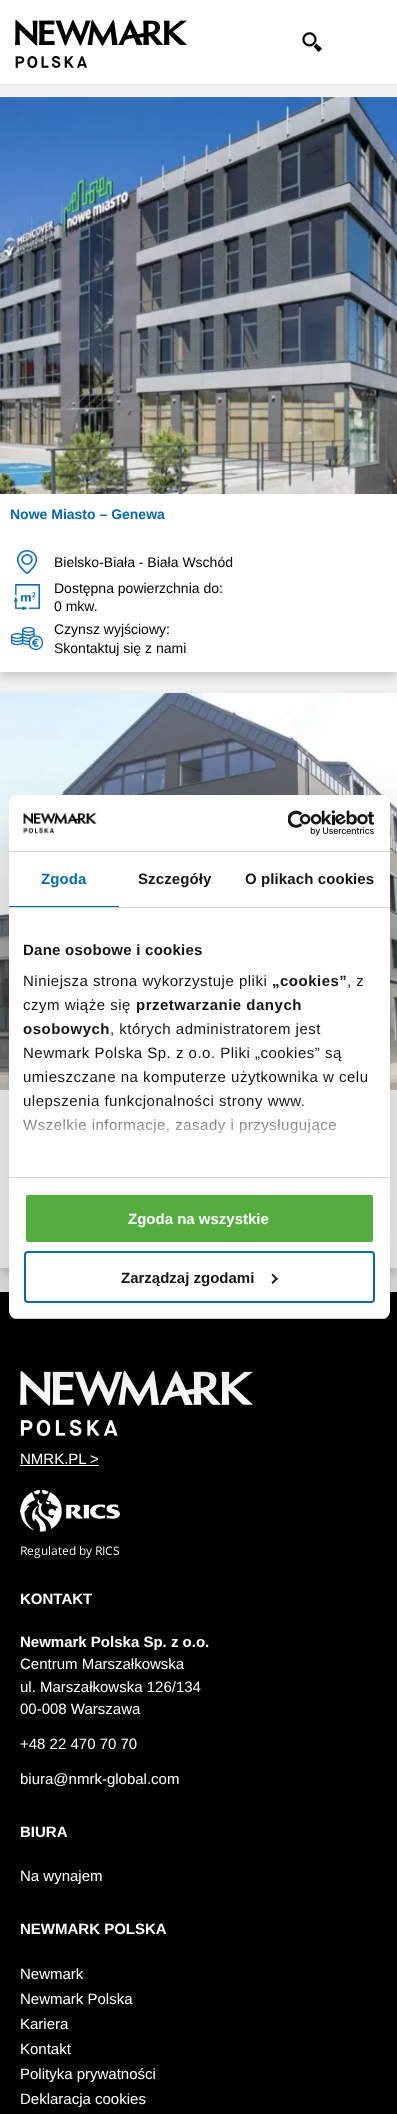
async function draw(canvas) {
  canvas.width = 397;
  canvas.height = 2114;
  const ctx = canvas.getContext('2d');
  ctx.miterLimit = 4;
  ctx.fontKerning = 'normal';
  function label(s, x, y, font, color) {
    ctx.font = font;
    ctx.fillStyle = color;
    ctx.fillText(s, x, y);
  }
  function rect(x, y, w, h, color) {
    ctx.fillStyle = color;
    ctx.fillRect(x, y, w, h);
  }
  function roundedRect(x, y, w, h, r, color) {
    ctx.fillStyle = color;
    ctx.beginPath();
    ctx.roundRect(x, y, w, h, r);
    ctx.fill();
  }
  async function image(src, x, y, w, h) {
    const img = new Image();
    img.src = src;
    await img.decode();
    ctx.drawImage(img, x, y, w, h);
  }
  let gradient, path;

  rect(0, 0, 397, 2114, '#f1f1f1');
  rect(0, 0, 397, 84, '#fff');
  rect(0, 84, 397, 1, '#e8e8e8');
  await image('assets/img1.png', 15, 20, 172, 48);
  await image('assets/img2.png', 302, 32, 20, 20);
  ctx.fillStyle = '#00000029';
  ctx.filter = 'blur(4.5px)';
  ctx.beginPath();
  ctx.rect(0, 102, 397, 575);
  ctx.fill();
  ctx.filter = 'none';
  rect(1, 95, 395, 2, '#f1f1f1');
  await image('assets/img3.png', 0, 97, 397, 397);
  rect(0, 494, 397, 178, '#fff');
  label('Nowe Miasto – Genewa', 10, 519, 'bold 14px Liberation Sans', '#006bb6');
  await image('assets/img4.png', 17, 550, 20, 24);
  label('Bielsko-Biała - Biała Wschód', 54, 567, '14px Liberation Sans', '#000');
  await image('assets/img5.png', 14, 584, 26, 26);
  label('Dostępna powierzchnia do:', 54, 593, '14px Liberation Sans', '#000');
  label('0 mkw.', 54, 611, '14px Liberation Sans', '#000');
  await image('assets/img6.png', 11, 627, 32, 23);
  label('Czynsz wyjściowy:', 54, 634, '14px Liberation Sans', '#000');
  label('Skontaktuj się z nami', 54, 653, '14px Liberation Sans', '#000');
  ctx.fillStyle = '#00000029';
  ctx.filter = 'blur(4.5px)';
  ctx.beginPath();
  ctx.rect(0, 698, 397, 575);
  ctx.fill();
  ctx.filter = 'none';
  await image('assets/img7.png', 0, 693, 397, 397);
  rect(0, 1090, 397, 178, '#fff');
  rect(0, 1292, 397, 822, '#000');
  await image('assets/img8.png', 20, 1371, 233, 65);
  label('NMRK.PL', 20, 1464, '15px Liberation Sans', '#fff');
  label('>', 90, 1464, '15px Liberation Sans', '#fff');
  rect(20, 1465, 79, 1, '#fff');
  await image('assets/img9.png', 20, 1490, 100, 68);
  label('KONTAKT', 20, 1604, 'bold 15px Liberation Sans', '#fff');
  label('Newmark Polska Sp. z o.o.', 20, 1647, 'bold 15px Liberation Sans', '#fff');
  label('Centrum Marszałkowska', 20, 1669, '15px Liberation Sans', '#fff');
  label('ul. Marszałkowska 126/134', 20, 1692, '15px Liberation Sans', '#fff');
  label('00-008 Warszawa', 20, 1714, '15px Liberation Sans', '#fff');
  label('+48 22 470 70 70', 20, 1749, '15px Liberation Sans', '#fff');
  label('biura@nmrk-global.com', 20, 1784, '15px Liberation Sans', '#fff');
  label('BIURA', 20, 1837, 'bold 15px Liberation Sans', '#fff');
  label('Na wynajem', 20, 1881, '15px Liberation Sans', '#fff');
  label('NEWMARK POLSKA', 20, 1934, 'bold 15px Liberation Sans', '#fff');
  label('Newmark', 20, 1979, '15px Liberation Sans', '#fff');
  label('Newmark Polska', 20, 2004, '15px Liberation Sans', '#fff');
  label('Kariera', 20, 2029, '15px Liberation Sans', '#fff');
  label('Kontakt', 20, 2054, '15px Liberation Sans', '#fff');
  label('Polityka prywatności', 20, 2079, '15px Liberation Sans', '#fff');
  label('Deklaracja cookies', 20, 2104, '15px Liberation Sans', '#fff');
  ctx.fillStyle = '#0000004d';
  ctx.filter = 'blur(34px)';
  ctx.beginPath();
  ctx.roundRect(9, 827, 381, 524, 8);
  ctx.fill();
  ctx.filter = 'none';
  roundedRect(9, 795, 381, 524, 8, '#fff');
  rect(9, 851, 381, 1, '#d6d6d6');
  await image('assets/img10.png', 23, 812, 74, 22);
  await image('assets/img11.png', 288, 810, 86, 26);
  rect(9, 907, 381, 1, '#d6d6d6');
  rect(9, 906, 110, 1, '#006cb7');
  ctx.letterSpacing = '0.1px';
  label('Zgoda', 41, 884, 'bold 15px Liberation Sans', '#006bb6');
  label('Szczegóły', 138, 884, 'bold 15px Liberation Sans', '#141414');
  label('O plikach cookies', 245, 884, 'bold 15px Liberation Sans', '#141414');
  rect(9, 1177, 381, 1, '#d6d6d6');
  ctx.letterSpacing = '0.25px';
  label('Dane osobowe i cookies', 23, 955, 'bold 15px Liberation Sans', '#141414');
  ctx.letterSpacing = '0.5px';
  label('Niniejsza strona wykorzystuje pliki', 23, 986, '15px Liberation Sans', '#141414');
  label('„cookies”', 272, 986, 'bold 15px Liberation Sans', '#141414');
  label(', z', 347, 986, '15px Liberation Sans', '#141414');
  label('czym wiąże się', 23, 1010, '15px Liberation Sans', '#141414');
  label('przetwarzanie danych', 136, 1010, 'bold 15px Liberation Sans', '#141414');
  label('osobowych', 23, 1034, 'bold 15px Liberation Sans', '#141414');
  label(', których administratorem jest', 110, 1034, '15px Liberation Sans', '#141414');
  label('Newmark Polska Sp. z o.o. Pliki „cookies” są', 23, 1058, '15px Liberation Sans', '#141414');
  label('umieszczane na komputerze użytkownika w celu', 23, 1082, '15px Liberation Sans', '#141414');
  label('ulepszenia funkcjonalności strony www.', 23, 1106, '15px Liberation Sans', '#141414');
  label('Wszelkie informacje, zasady i przysługujące', 23, 1130, '15px Liberation Sans', '#141414');
  gradient = ctx.createLinearGradient(193, 1177, 193, 1102);
  gradient.addColorStop(0, '#fff');
  gradient.addColorStop(0.5, '#ffffffcc');
  gradient.addColorStop(1, '#ffffff00');
  ctx.fillStyle = gradient;
  ctx.fillRect(23, 1103, 313, 31);
  ctx.save();
  ctx.beginPath();
  ctx.roundRect(9, 795, 381, 524, 8);
  ctx.clip();
  rect(9, 1318, 381, 1, '#d6d6d6');
  ctx.restore();
  ctx.fillStyle = '#54ad3e';
  ctx.beginPath();
  ctx.roundRect(25, 1194, 349, 49, 3);
  ctx.fill();
  ctx.strokeStyle = '#fff';
  ctx.lineWidth = 2;
  ctx.stroke();
  ctx.letterSpacing = '0px';
  label('Zgoda na wszystkie', 128, 1224, 'bold 15px Liberation Sans', '#fff');
  ctx.beginPath();
  ctx.roundRect(25, 1252, 349, 50, 3);
  ctx.strokeStyle = '#006cb7';
  ctx.stroke();
  label('Zarządzaj zgodami', 121, 1283, 'bold 15px Liberation Sans', '#141414');
  path = new Path2D('M272.5 1273.5L278 1279L276.5 1280L271.5 1275Z');
  ctx.fill(path);
  path = new Path2D('M276.5 1277.5L278 1279L272.5 1284L271.5 1282.5Z');
  ctx.fill(path);
}

draw(document.querySelector('canvas'));
